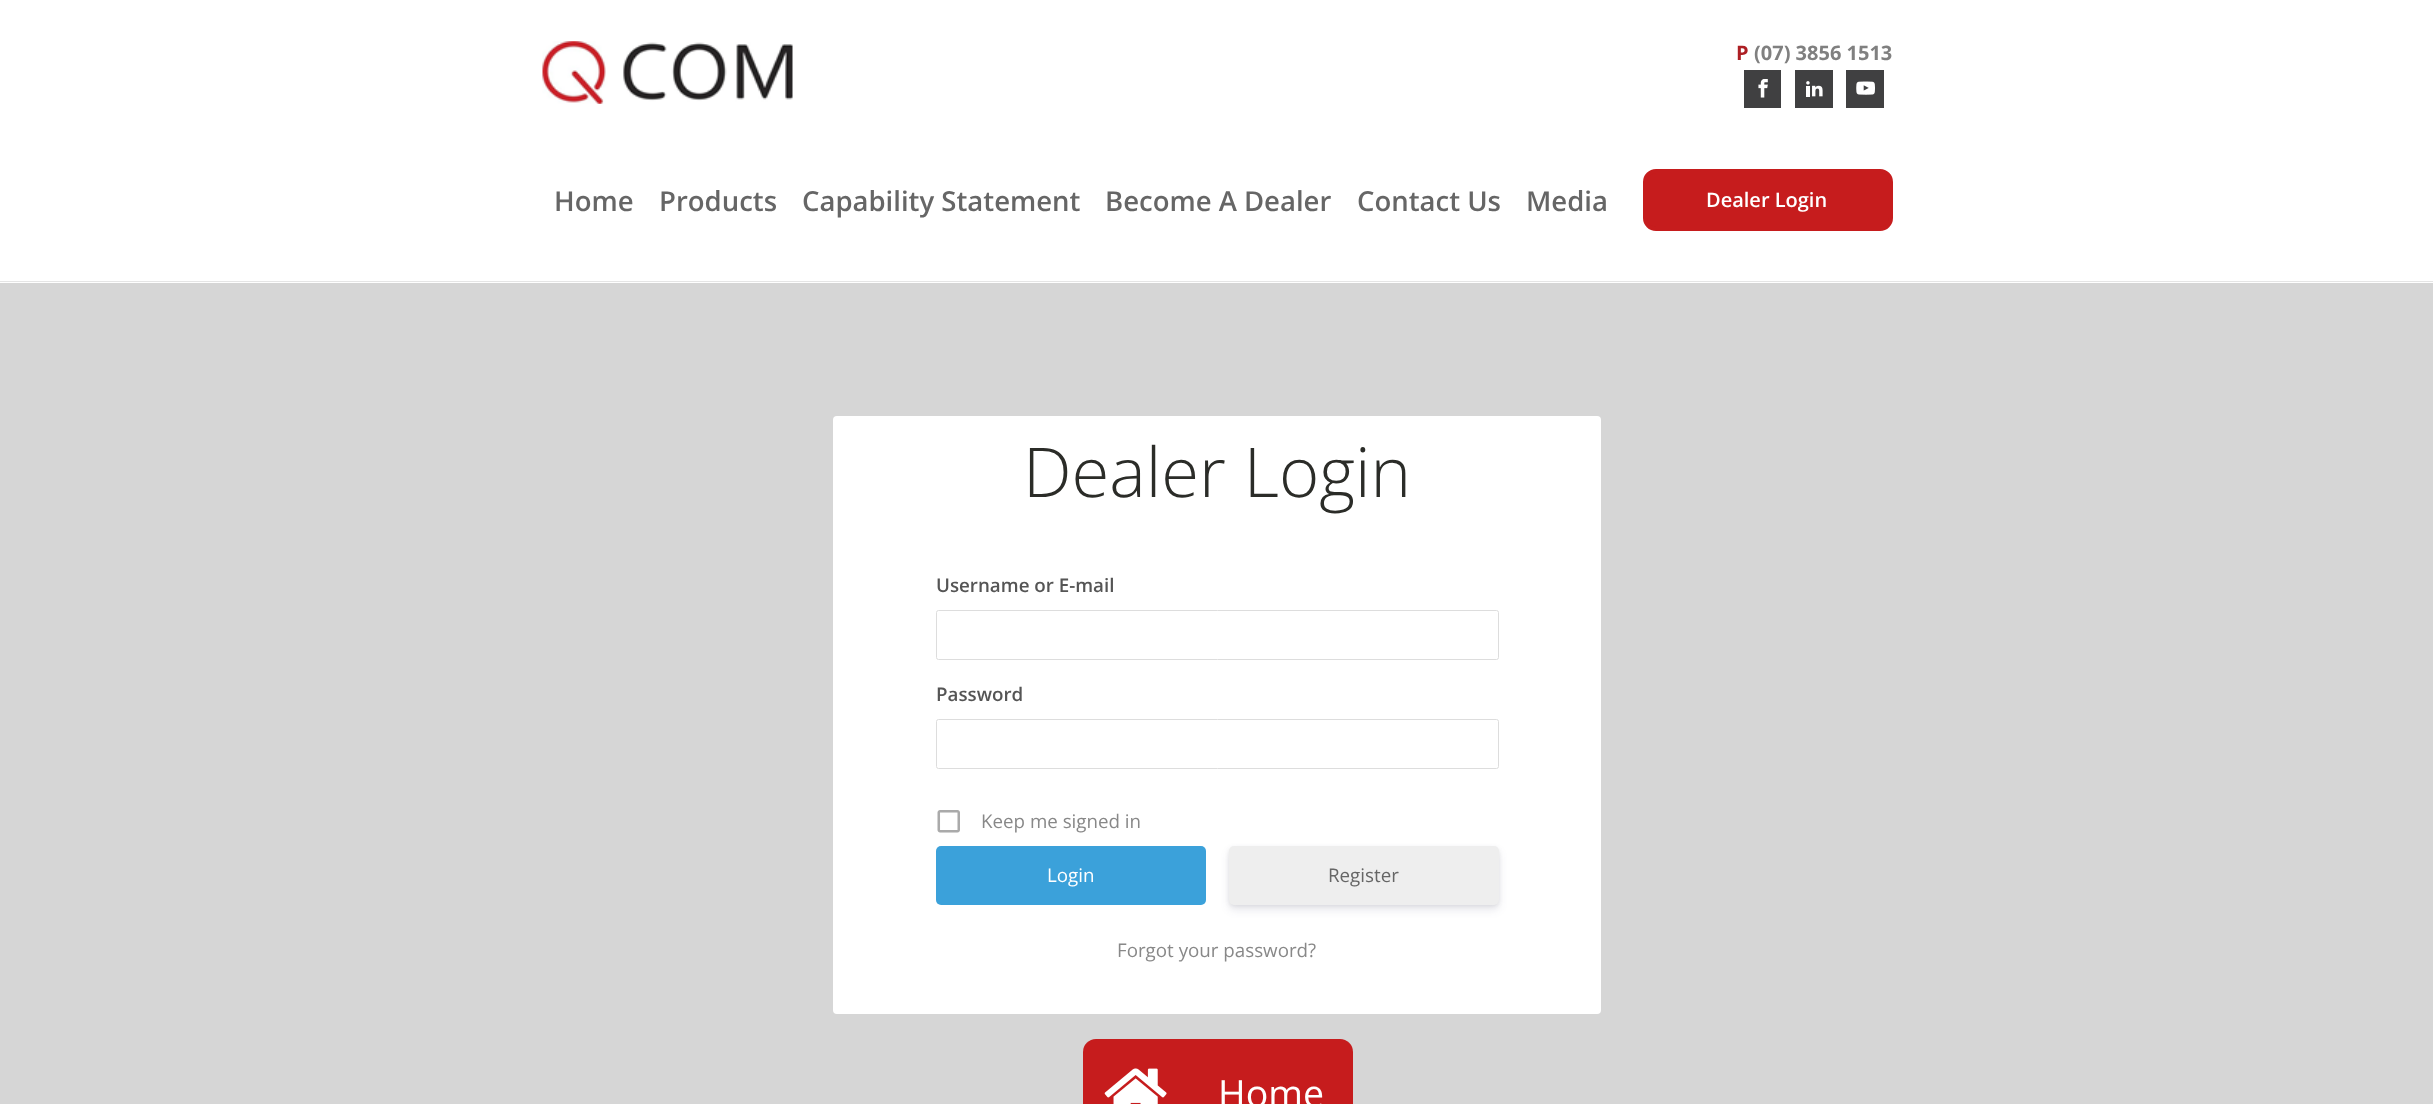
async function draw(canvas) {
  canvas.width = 2433;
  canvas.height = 1104;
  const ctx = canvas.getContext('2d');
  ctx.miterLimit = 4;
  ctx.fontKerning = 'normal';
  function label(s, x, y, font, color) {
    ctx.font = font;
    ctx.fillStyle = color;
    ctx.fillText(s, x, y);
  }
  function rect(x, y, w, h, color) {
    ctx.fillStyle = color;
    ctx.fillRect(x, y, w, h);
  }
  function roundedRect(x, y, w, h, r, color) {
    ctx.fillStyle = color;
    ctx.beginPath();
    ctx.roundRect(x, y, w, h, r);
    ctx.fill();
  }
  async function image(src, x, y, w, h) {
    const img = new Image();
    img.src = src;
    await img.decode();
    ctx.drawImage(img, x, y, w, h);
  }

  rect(0, 0, 2433, 1104, '#fff');
  await image('assets/img1.png', 542, 41, 251, 63);
  label('P', 1736, 60, 'bold 20px Open Sans', '#ad1f24');
  label('(07) 3856 1513', 1754, 60, 'bold 20px Open Sans', '#808080');
  rect(1744, 70, 37, 38, '#404041');
  await image('assets/img2.png', 1758, 79, 10, 19);
  rect(1795, 70, 38, 38, '#404041');
  await image('assets/img3.png', 1806, 81, 17, 16);
  rect(1846, 70, 38, 38, '#404041');
  await image('assets/img4.png', 1856, 81, 19, 14);
  rect(0, 281, 2433, 1, '#e5e5e5');
  label('Home', 554, 211, '600 27.5px Open Sans', '#666');
  label('Products', 659, 211, '600 27.5px Open Sans', '#666');
  label('Capability Statement', 802, 211, '600 27.5px Open Sans', '#666');
  label('Become A Dealer', 1105, 211, '600 27.5px Open Sans', '#666');
  label('Contact Us', 1357, 211, '600 27.5px Open Sans', '#666');
  label('Media', 1526, 211, '600 27.5px Open Sans', '#666');
  ctx.fillStyle = '#c61c1d';
  ctx.beginPath();
  ctx.roundRect(1645, 171, 246, 58, 11);
  ctx.fill();
  ctx.strokeStyle = '#c61c1d';
  ctx.lineWidth = 4;
  ctx.stroke();
  label('Dealer Login', 1706, 207, '600 20px Open Sans', '#fff');
  rect(0, 283, 2433, 821, '#d6d6d6');
  roundedRect(833, 416, 768, 598, 4, '#fff');
  label('Dealer Login', 1023, 497, '300 68.75px Open Sans', '#2b2c28');
  label('Username or E-mail', 936, 592, '600 18.75px Open Sans', '#555');
  ctx.beginPath();
  ctx.roundRect(936.5, 610.5, 562, 49, 2);
  ctx.strokeStyle = '#ddd';
  ctx.lineWidth = 1;
  ctx.stroke();
  label('Password', 936, 701, '600 18.75px Open Sans', '#555');
  ctx.beginPath();
  ctx.roundRect(936.5, 719.5, 562, 49, 2);
  ctx.stroke();
  await image('assets/img5.png', 937, 810, 23, 23);
  label('Keep me signed in', 981, 828, '18.75px Open Sans', '#888');
  roundedRect(936, 846, 270, 59, 5, '#3ba1da');
  label('Login', 1047, 882, '18.75px Open Sans', '#fff');
  ctx.fillStyle = '#00000014';
  ctx.filter = 'blur(2px)';
  ctx.beginPath();
  ctx.roundRect(1229, 848, 270, 58, 5);
  ctx.fill();
  ctx.filter = 'none';
  ctx.fillStyle = '#32325d1c';
  ctx.filter = 'blur(4px)';
  ctx.beginPath();
  ctx.roundRect(1229, 851, 270, 59, 5);
  ctx.fill();
  ctx.filter = 'none';
  roundedRect(1229, 846, 270, 59, 5, '#eee');
  label('Register', 1328, 882, '18.75px Open Sans', '#666');
  label('Forgot your password?', 1117, 957, '18.75px Open Sans', '#888');
  roundedRect(1083, 1039, 270, 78, 13, '#c61c1d');
  await image('assets/img6.png', 1104, 1068, 63, 36);
  label('Home', 1218, 1107, '37.5px Open Sans', '#fff');
}

draw(document.querySelector('canvas'));
